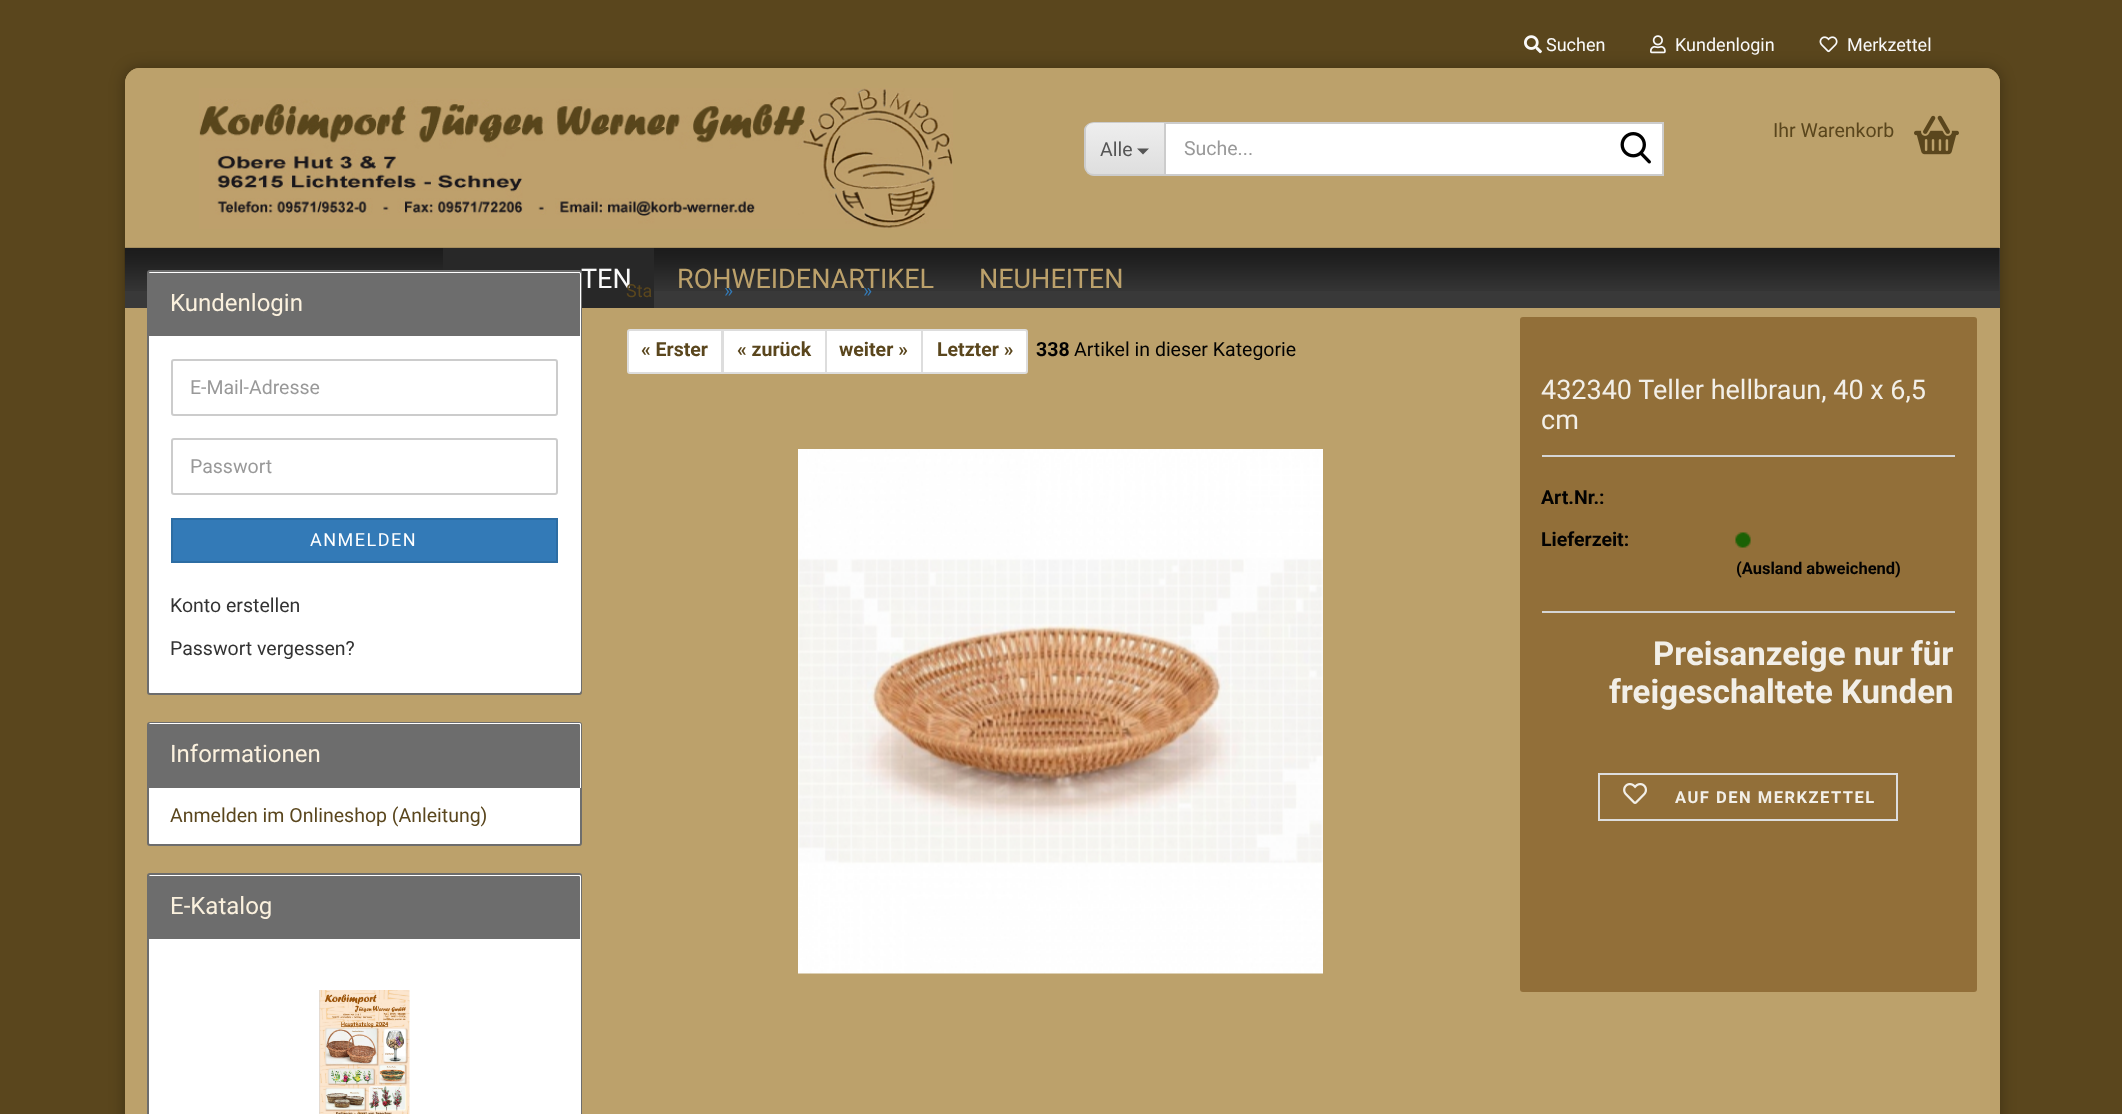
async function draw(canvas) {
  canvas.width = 2122;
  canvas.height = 1114;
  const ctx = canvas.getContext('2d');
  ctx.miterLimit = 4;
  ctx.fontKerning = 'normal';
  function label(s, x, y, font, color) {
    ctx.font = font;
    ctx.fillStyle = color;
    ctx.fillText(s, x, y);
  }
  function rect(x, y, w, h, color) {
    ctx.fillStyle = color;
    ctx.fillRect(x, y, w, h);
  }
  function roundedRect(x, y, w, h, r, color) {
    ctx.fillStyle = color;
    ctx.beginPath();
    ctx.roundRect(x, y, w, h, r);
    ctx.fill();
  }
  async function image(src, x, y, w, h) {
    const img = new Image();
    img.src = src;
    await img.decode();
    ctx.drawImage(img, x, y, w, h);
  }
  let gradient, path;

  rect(0, 0, 2122, 1114, '#5a461d');
  ctx.fillStyle = '#0000004d';
  ctx.filter = 'blur(7.5px)';
  ctx.beginPath();
  ctx.roundRect(125, 68, 1875, 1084, 15);
  ctx.fill();
  ctx.filter = 'none';
  roundedRect(125, 68, 1875, 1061, 15, '#bca16b');
  ctx.beginPath();
  ctx.roundRect(125, 68, 1875, 120, [15, 15, 3, 3]);
  ctx.fill();
  await image('assets/img1.png', 1524, 35, 18, 19);
  label('Suchen', 1546, 51, '18px Roboto', '#f9f9f9');
  await image('assets/img2.png', 1650, 35, 16, 19);
  label('Kundenlogin', 1675, 51, '18px Roboto', '#f9f9f9');
  await image('assets/img3.png', 1819, 36, 19, 17);
  label('Merkzettel', 1847, 51, '18px Roboto', '#f9f9f9');
  await image('assets/img4.png', 199, 88, 754, 141);
  label('Ihr Warenkorb', 1773, 137, '19.5px Roboto', '#5a461d');
  await image('assets/img5.png', 1914, 115, 45, 40);
  ctx.save();
  ctx.beginPath();
  ctx.roundRect(1085, 122, 79, 54, [9, 0, 0, 9]);
  ctx.clip();
  gradient = ctx.createLinearGradient(1125, 123, 1125, 174);
  gradient.addColorStop(0, '#eee');
  gradient.addColorStop(1, '#dedede');
  ctx.fillStyle = gradient;
  ctx.fillRect(1085, 123, 79, 51);
  ctx.restore();
  ctx.fillStyle = '#ccc';
  path = new Path2D('M1094 122H1164V176H1094C1089 176 1084 171 1084 166V130C1084 126 1089 122 1094 122ZM1094 123H1164V174H1094C1089 174 1086 171 1086 166V130C1086 126 1089 123 1094 123Z');
  ctx.fill(path, 'evenodd');
  label('Alle', 1100, 156, '19.5px Roboto', '#555');
  path = new Path2D('M1137 148.5H1149L1143 154.5Z');
  ctx.fill(path);
  ctx.fillStyle = '#fff';
  ctx.beginPath();
  ctx.rect(1165, 123, 498, 52);
  ctx.fill();
  ctx.strokeStyle = '#ccc';
  ctx.lineWidth = 2;
  ctx.stroke();
  label('Suche...', 1184, 155, '19.5px Roboto', '#999');
  await image('assets/img6.png', 1620, 132, 31, 32);
  rect(125, 248, 1875, 60, '#393939');
  await image('assets/img7.png', 124, 247, 1876, 44);
  rect(443, 248, 211, 60, '#282828');
  label('TEN', 581, 288, '27px Roboto', '#f9f9f9');
  label('ROHWEIDENARTIKEL', 677, 288, '27px Roboto', '#bca16b');
  label('NEUHEITEN', 979, 288, '27px Roboto', '#bca16b');
  ctx.fillStyle = '#fff';
  ctx.beginPath();
  ctx.roundRect(148, 271, 433, 423, 2);
  ctx.fill();
  ctx.strokeStyle = '#6d6d6d';
  ctx.stroke();
  ctx.fillStyle = '#6d6d6d';
  ctx.beginPath();
  ctx.roundRect(149, 272, 432, 64, [1.5, 1.5, 0, 0]);
  ctx.fill();
  ctx.fillStyle = '#fff';
  path = new Path2D('M150 273H579C580 273 580 274 580 274V336H581V274C581 273 580 272 580 272H150C150 272 149 273 149 273Z');
  ctx.fill(path);
  label('Kundenlogin', 170, 311, '24px Roboto', '#fbf1de');
  ctx.fillStyle = '#fff';
  ctx.beginPath();
  ctx.roundRect(149, 336, 432, 357, [0, 0, 3, 3]);
  ctx.fill();
  ctx.beginPath();
  ctx.roundRect(172, 360, 385, 55, 2);
  ctx.strokeStyle = '#ccc';
  ctx.stroke();
  label('E-Mail-Adresse', 190, 394, '19.5px Roboto', '#999');
  ctx.beginPath();
  ctx.roundRect(172, 439, 385, 55, 2);
  ctx.stroke();
  label('Passwort', 190, 473, '19.5px Roboto', '#999');
  ctx.fillStyle = '#337ab7';
  ctx.beginPath();
  ctx.rect(172, 519, 385, 43);
  ctx.fill();
  ctx.strokeStyle = '#2d6da3';
  ctx.stroke();
  ctx.letterSpacing = '1.5px';
  label('ANMELDEN', 310, 546, '18px Roboto', '#fff');
  ctx.letterSpacing = '0px';
  label('Konto erstellen', 170, 612, '19.5px Roboto', '#333');
  label('Passwort vergessen?', 170, 655, '19.5px Roboto', '#333');
  ctx.fillStyle = '#fff';
  ctx.beginPath();
  ctx.roundRect(148, 723, 433, 122, 2);
  ctx.fill();
  ctx.strokeStyle = '#6d6d6d';
  ctx.stroke();
  ctx.fillStyle = '#6d6d6d';
  ctx.beginPath();
  ctx.roundRect(149, 723, 432, 65, [1.5, 1.5, 0, 0]);
  ctx.fill();
  ctx.fillStyle = '#fff';
  path = new Path2D('M150 724H579C580 724 580 725 580 726V788H581V724C581 724 580 723 580 723H150C150 723 149 724 149 724Z');
  ctx.fill(path);
  label('Informationen', 170, 762, '24px Roboto', '#fbf1de');
  label('Anmelden im Onlineshop (Anleitung)', 170, 822, '19.5px Roboto', '#5a461d');
  ctx.beginPath();
  ctx.roundRect(148, 874, 433, 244, 2);
  ctx.stroke();
  ctx.fillStyle = '#6d6d6d';
  ctx.beginPath();
  ctx.roundRect(149, 875, 432, 64, [1.5, 1.5, 0, 0]);
  ctx.fill();
  ctx.fillStyle = '#fff';
  path = new Path2D('M150 876H579C580 876 580 877 580 878V939H581V876C581 876 580 875 580 875H150C150 875 149 876 149 876Z');
  ctx.fill(path);
  label('E-Katalog', 170, 914, '24px Roboto', '#fbf1de');
  rect(149, 939, 432, 175, '#fff');
  await image('assets/img8.png', 319, 990, 91, 124);
  label('Sta', 626, 297, '18px Roboto', '#5a461d');
  label('»', 724, 297, '19.5px Roboto', '#337ab7');
  label('»', 863, 297, '19.5px Roboto', '#337ab7');
  ctx.fillStyle = '#fff';
  ctx.beginPath();
  ctx.roundRect(628, 330, 94, 43, [2, 0, 0, 2]);
  ctx.fill();
  ctx.strokeStyle = '#ddd';
  ctx.stroke();
  label('« Erster', 641, 356, 'bold 19.5px Roboto', '#5a461d');
  ctx.fillStyle = '#fff';
  ctx.beginPath();
  ctx.rect(723, 330, 103, 43);
  ctx.fill();
  ctx.stroke();
  label('« zurück', 737, 356, 'bold 19.5px Roboto', '#5a461d');
  ctx.fillStyle = '#fff';
  ctx.beginPath();
  ctx.rect(826, 330, 96, 43);
  ctx.fill();
  ctx.stroke();
  label('weiter »', 839, 356, 'bold 19.5px Roboto', '#5a461d');
  ctx.fillStyle = '#fff';
  ctx.beginPath();
  ctx.roundRect(922, 330, 105, 43, [0, 2, 2, 0]);
  ctx.fill();
  ctx.stroke();
  label('Letzter »', 937, 356, 'bold 19.5px Roboto', '#5a461d');
  label('338', 1036, 356, 'bold 19.5px Roboto', '#020202');
  label('Artikel in dieser Kategorie', 1074, 356, '19.5px Roboto', '#020202');
  await image('assets/img9.png', 798, 449, 525, 525);
  roundedRect(1520, 317, 457, 675, 3, '#926f39');
  rect(1542, 455, 413, 2, '#d5d5d5');
  label('432340 Teller hellbraun, 40 x 6,5', 1541, 399, '27px Roboto', '#f2efe8');
  label('cm', 1541, 429, '27px Roboto', '#f2efe8');
  rect(1542, 611, 413, 2, '#d5d5d5');
  label('Art.Nr.:', 1541, 504, 'bold 19.5px Roboto', '#020202');
  label('Lieferzeit:', 1541, 546, 'bold 19.5px Roboto', '#020202');
  await image('assets/img10.png', 1735, 532, 16, 16);
  label('(Ausland abweichend)', 1736, 574, 'bold 16.5px Roboto', '#020202');
  label('Preisanzeige nur für', 1653, 665, 'bold 33px Roboto', '#f2efe8');
  label('freigeschaltete Kunden', 1609, 703, 'bold 33px Roboto', '#f2efe8');
  ctx.strokeRect(1599, 774, 298, 46);
  await image('assets/img11.png', 1623, 783, 24, 21);
  ctx.letterSpacing = '1.5px';
  label('AUF DEN MERKZETTEL', 1675, 803, 'bold 16.5px Roboto', '#f2efe8');
}

draw(document.querySelector('canvas'));
